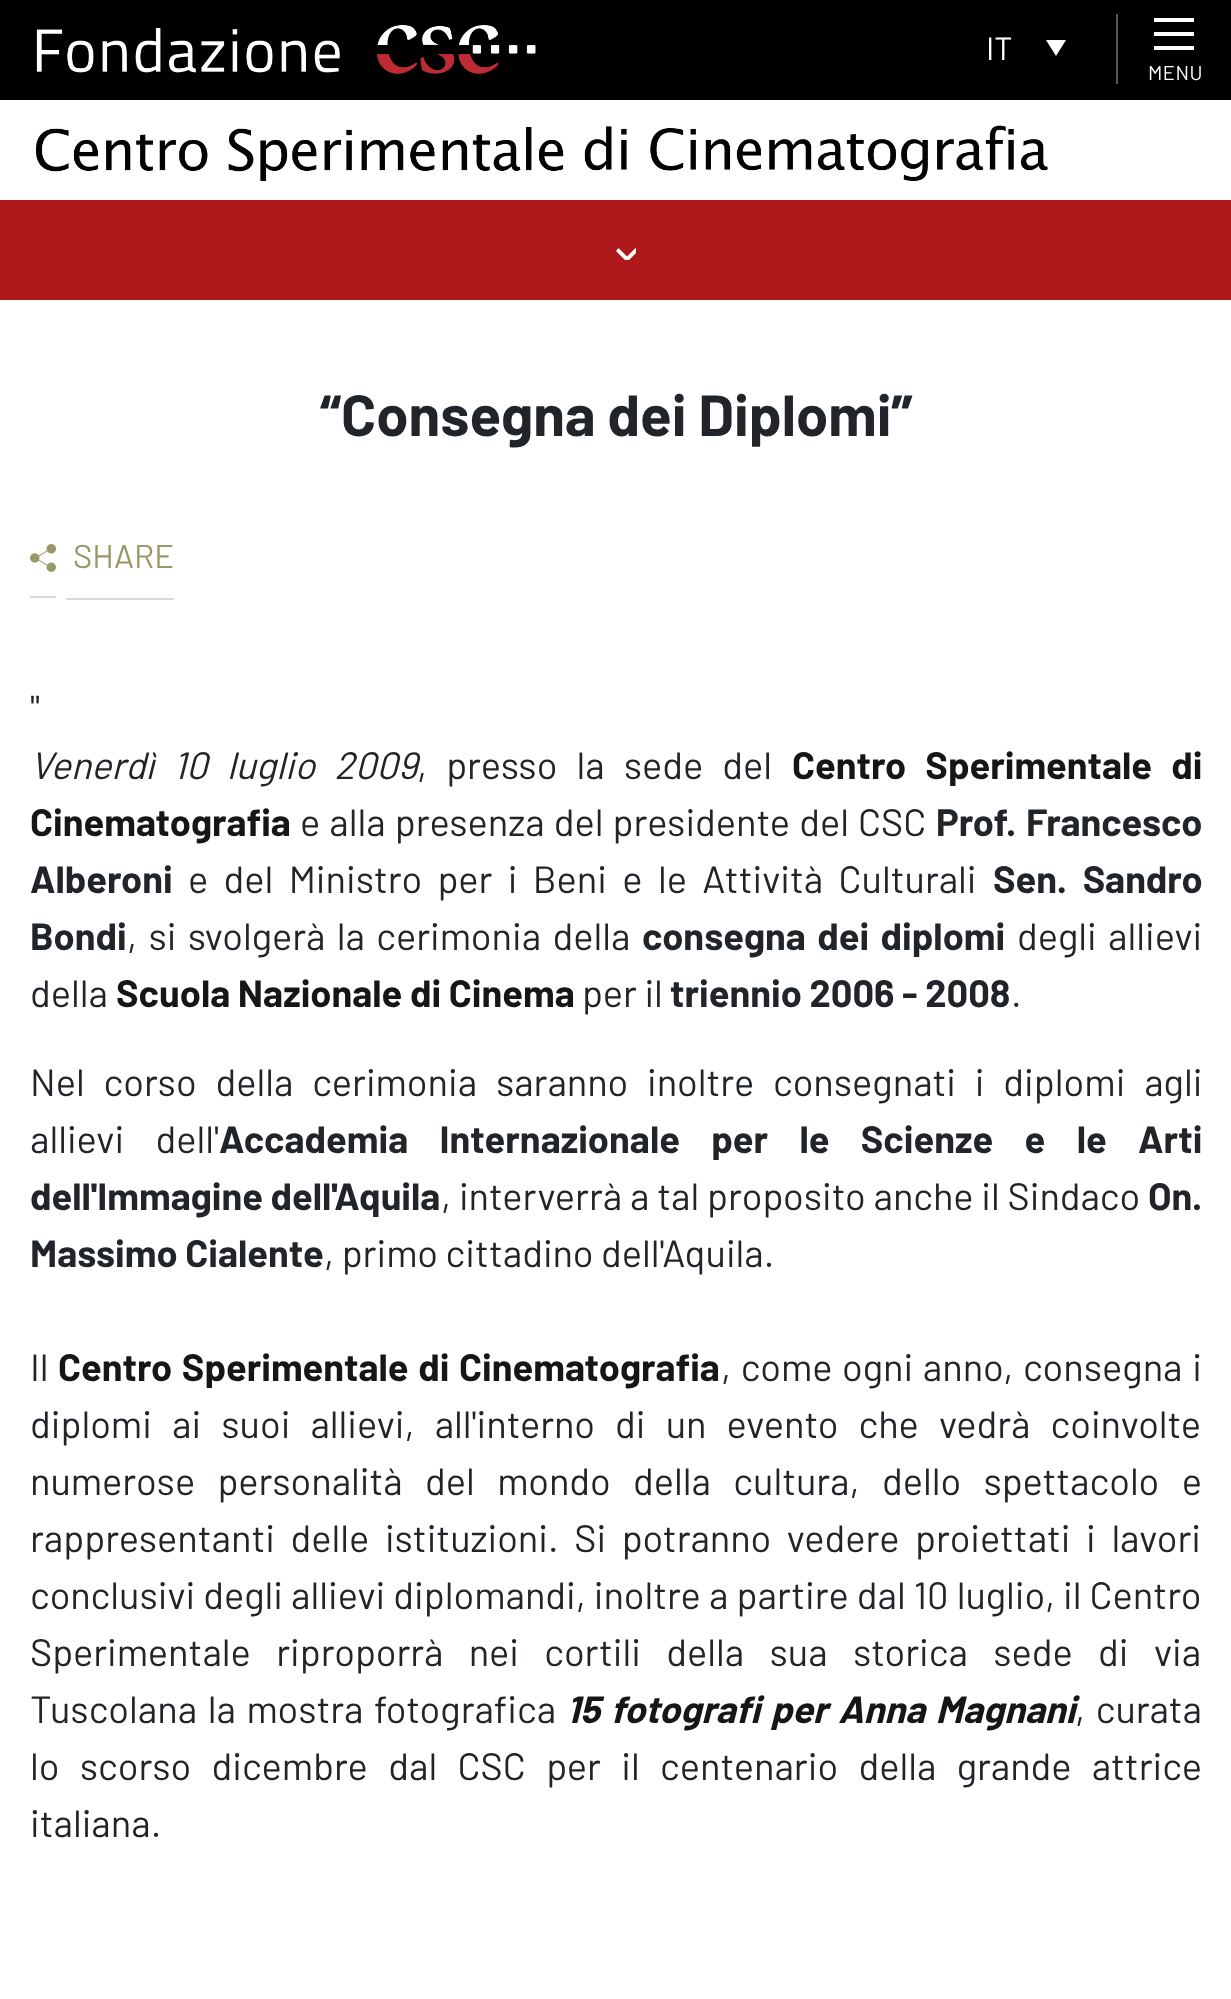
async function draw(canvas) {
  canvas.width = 1231;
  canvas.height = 1999;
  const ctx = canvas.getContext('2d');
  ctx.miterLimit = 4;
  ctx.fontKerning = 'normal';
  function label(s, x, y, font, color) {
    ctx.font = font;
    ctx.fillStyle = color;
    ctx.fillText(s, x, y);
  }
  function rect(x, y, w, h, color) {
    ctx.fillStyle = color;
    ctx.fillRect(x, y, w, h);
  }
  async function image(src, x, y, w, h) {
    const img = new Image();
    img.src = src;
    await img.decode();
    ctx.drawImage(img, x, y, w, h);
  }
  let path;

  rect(0, 0, 1231, 1999, '#fff');
  rect(0, 0, 1231, 100, '#000');
  await image('assets/img1.png', 36, 25, 500, 49);
  label('IT', 986, 60, '32px Barlow', '#fff');
  path = new Path2D('M1046 40H1066L1056 56Z');
  ctx.fill(path);
  rect(1116, 14, 2, 70, '#565656');
  rect(1154, 18, 40, 4, '#fff');
  rect(1154, 32, 40, 4, '#fff');
  rect(1154, 46, 40, 4, '#fff');
  ctx.letterSpacing = '0.5px';
  label('MENU', 1148, 80, '20px Barlow', '#fff');
  await image('assets/img2.png', 36, 125, 1012, 56);
  rect(0, 200, 1231, 100, '#ae181a');
  ctx.save();
  ctx.beginPath();
  ctx.rect(616, 248, 20, 12);
  ctx.clip();
  ctx.fillStyle = '#fff';
  path = new Path2D('M635.5 248L627 256.5L618.5 248L616 251L627 262L638 251Z');
  ctx.fill(path);
  ctx.restore();
  ctx.letterSpacing = '0px';
  label('“Consegna dei Diplomi”', 320, 436, 'bold 58px Barlow', '#212529');
  await image('assets/img3.png', 30, 544, 26, 28);
  label('SHARE', 73, 568, '33px Barlow', '#996');
  rect(30, 596, 26, 2, '#d9d9d8');
  rect(66, 598, 108, 2, '#d9d9d8');
  label('"', 30, 722, '38px Barlow', '#212529');
  ctx.wordSpacing = '11.5px';
  label('Venerdì 10 luglio 2009', 30, 779, 'italic 38px Barlow', '#212529');
  label(', presso la sede del', 417, 779, '38px Barlow', '#212529');
  label('Centro Sperimentale di', 792, 779, 'bold 38px Barlow', '#161615');
  ctx.wordSpacing = '0px';
  label('Cinematografia', 30, 836, 'bold 38px Barlow', '#161615');
  ctx.wordSpacing = '1.5px';
  label('e alla presenza del presidente del CSC', 300, 836, '38px Barlow', '#212529');
  ctx.wordSpacing = '0px';
  label('Prof.', 936, 836, 'bold 38px Barlow', '#212529');
  label('Francesco', 1026, 836, 'bold 38px Barlow', '#212529');
  label('Alberoni', 30, 893, 'bold 38px Barlow', '#212529');
  ctx.wordSpacing = '7.75px';
  label('e del Ministro per i Beni e le Attività Culturali', 188, 893, '38px Barlow', '#212529');
  ctx.wordSpacing = '8px';
  label('Sen. Sandro', 993, 893, 'bold 38px Barlow', '#212529');
  ctx.wordSpacing = '0px';
  label('Bondi', 30, 950, 'bold 38px Barlow', '#212529');
  ctx.wordSpacing = '3.75px';
  label(', si svolgerà la cerimonia della', 127, 950, '38px Barlow', '#212529');
  label('consegna dei diplomi', 642, 950, 'bold 38px Barlow', '#212529');
  label('degli allievi', 1017, 950, '38px Barlow', '#212529');
  ctx.wordSpacing = '0px';
  label('della', 30, 1007, '38px Barlow', '#212529');
  label('Scuola Nazionale di Cinema', 116, 1007, 'bold 38px Barlow', '#161615');
  label('per il', 582, 1007, '38px Barlow', '#212529');
  label('triennio 2006 - 2008', 670, 1007, 'bold 38px Barlow', '#212529');
  label('.', 1011, 1007, '38px Barlow', '#212529');
  ctx.wordSpacing = '11.25px';
  label('Nel corso della cerimonia saranno inoltre consegnati i diplomi agli', 30, 1096, '38px Barlow', '#212529');
  ctx.wordSpacing = '23.75px';
  label('allievi dell\'', 30, 1153, '38px Barlow', '#212529');
  label('Accademia Internazionale per le Scienze e le Arti', 219, 1153, 'bold 38px Barlow', '#212529');
  ctx.wordSpacing = '0px';
  label('dell\'Immagine dell\'Aquila', 30, 1210, 'bold 38px Barlow', '#212529');
  ctx.wordSpacing = '0.25px';
  label(', interverrà a tal proposito anche il Sindaco', 441, 1210, '38px Barlow', '#212529');
  ctx.wordSpacing = '0px';
  label('On.', 1148, 1210, 'bold 38px Barlow', '#212529');
  label('Massimo Cialente', 30, 1267, 'bold 38px Barlow', '#212529');
  label(', primo cittadino dell\'Aquila.', 324, 1267, '38px Barlow', '#212529');
  label('Il', 30, 1381, '38px Barlow', '#212529');
  ctx.wordSpacing = '2px';
  label('Centro Sperimentale di Cinematografia', 58, 1381, 'bold 38px Barlow', '#161615');
  label(', come ogni anno, consegna i', 721, 1381, '38px Barlow', '#212529');
  ctx.wordSpacing = '12.5px';
  label('diplomi ai suoi allievi, all\'interno di un evento che vedrà coinvolte', 30, 1438, '38px Barlow', '#212529');
  ctx.wordSpacing = '14.75px';
  label('numerose personalità del mondo della cultura, dello spettacolo e', 30, 1495, '38px Barlow', '#212529');
  ctx.wordSpacing = '8px';
  label('rappresentanti delle istituzioni. Si potranno vedere proiettati i lavori', 30, 1552, '38px Barlow', '#212529');
  ctx.wordSpacing = '0.5px';
  label('conclusivi degli allievi diplomandi, inoltre a partire dal 10 luglio, il Centro', 30, 1609, '38px Barlow', '#212529');
  ctx.wordSpacing = '17.75px';
  label('Sperimentale riproporrà nei cortili della sua storica sede di via', 30, 1666, '38px Barlow', '#212529');
  ctx.wordSpacing = '3px';
  label('Tuscolana la mostra fotografica', 30, 1723, '38px Barlow', '#212529');
  label('15 fotografi per Anna Magnani', 566, 1723, 'italic bold 38px Barlow', '#161615');
  label(', curata', 1075, 1723, '38px Barlow', '#212529');
  ctx.wordSpacing = '12.75px';
  label('lo scorso dicembre dal CSC per il centenario della grande attrice', 30, 1780, '38px Barlow', '#212529');
  ctx.wordSpacing = '0px';
  label('italiana.', 30, 1837, '38px Barlow', '#212529');
}

draw(document.querySelector('canvas'));
